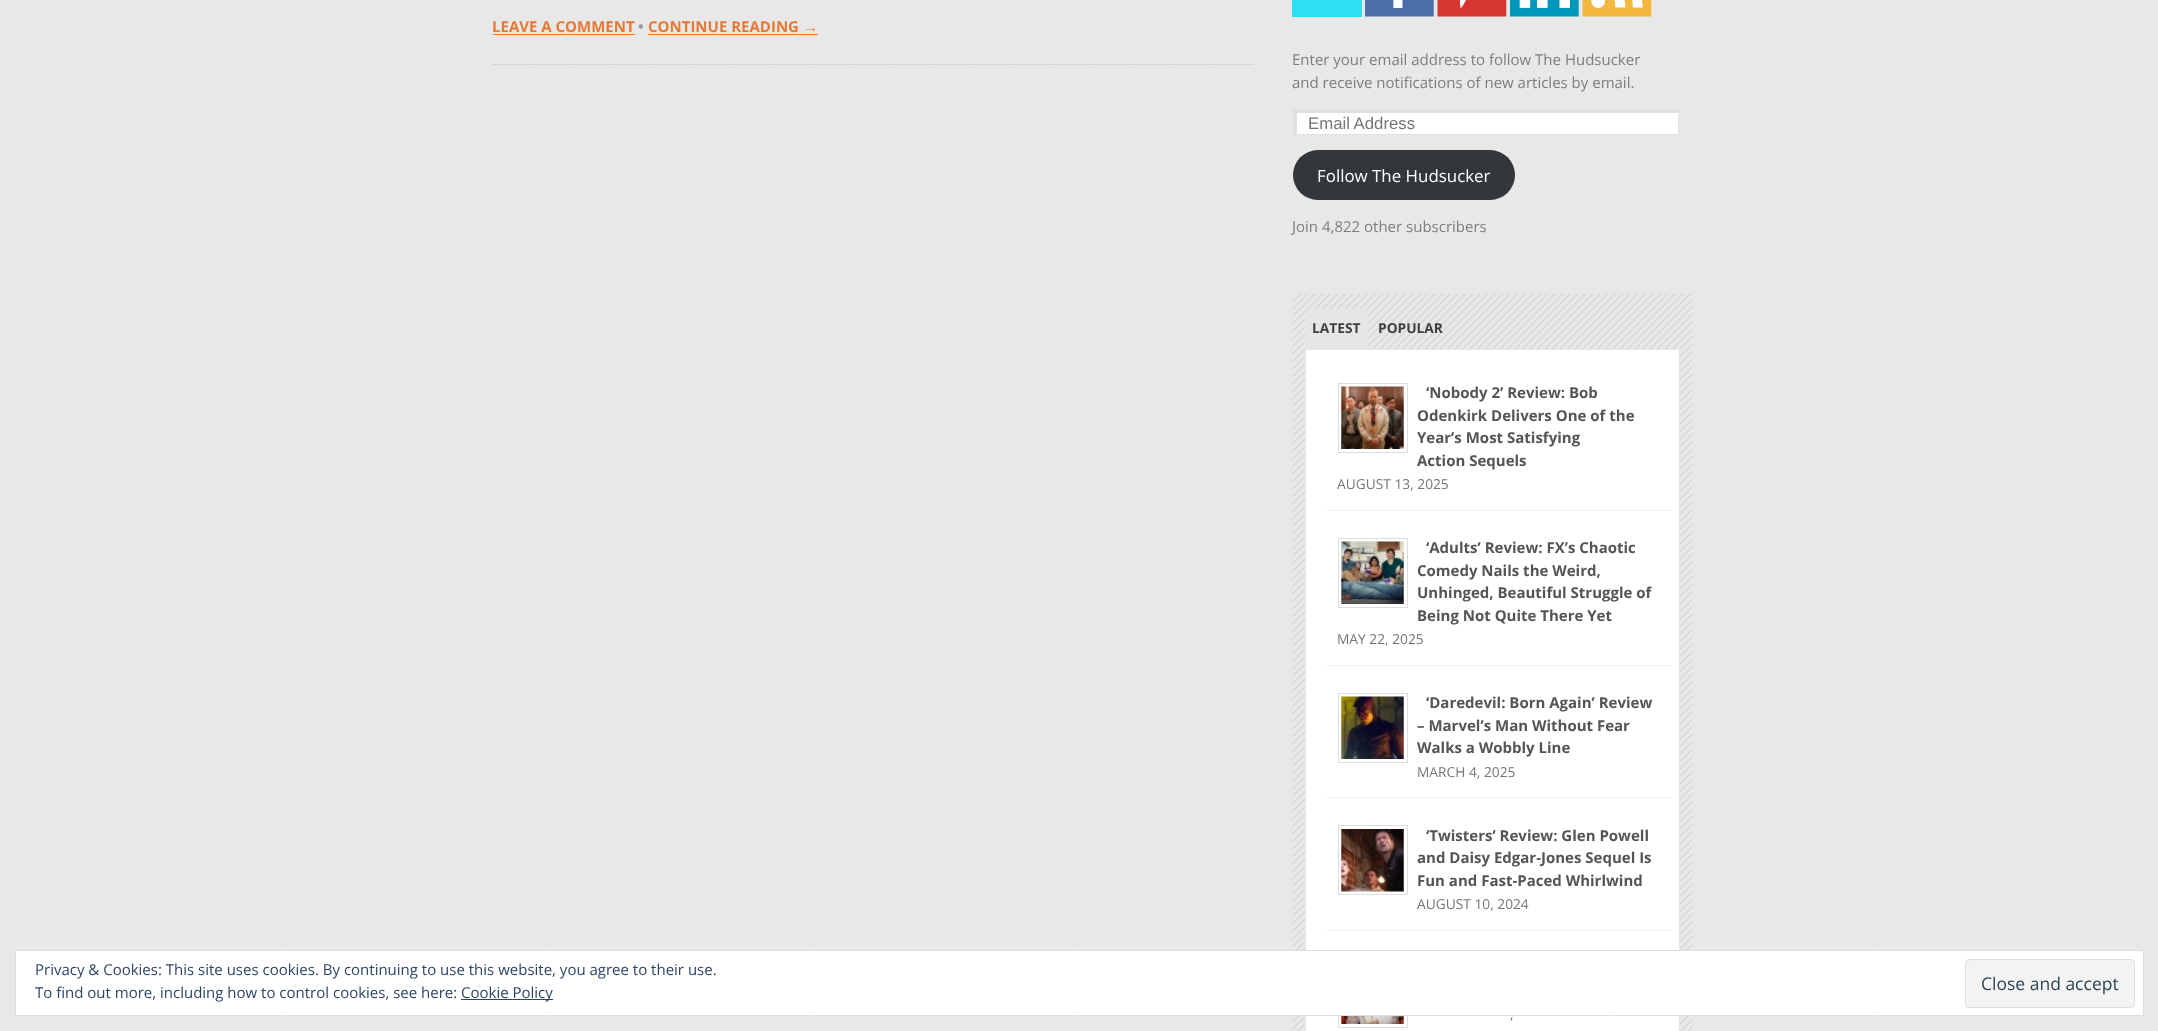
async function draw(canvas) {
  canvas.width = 2158;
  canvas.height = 1031;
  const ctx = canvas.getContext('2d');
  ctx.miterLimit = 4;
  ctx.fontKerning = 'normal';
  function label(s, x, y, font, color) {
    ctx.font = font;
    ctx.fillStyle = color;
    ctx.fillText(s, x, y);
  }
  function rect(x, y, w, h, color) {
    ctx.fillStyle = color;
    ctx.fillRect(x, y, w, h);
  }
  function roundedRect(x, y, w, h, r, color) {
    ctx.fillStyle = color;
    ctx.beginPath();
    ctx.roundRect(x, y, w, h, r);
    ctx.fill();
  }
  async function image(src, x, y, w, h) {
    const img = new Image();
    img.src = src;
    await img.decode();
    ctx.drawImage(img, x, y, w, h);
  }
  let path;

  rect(0, 0, 2158, 1031, '#e8e8e8');
  path = new Path2D('M492.5 64.5H1255');
  ctx.strokeStyle = '#c9c4c4';
  ctx.lineWidth = 1.2;
  ctx.setLineDash([1.25, 1.25]);
  ctx.stroke(path);
  label('LEAVE A COMMENT', 492, 32, 'bold 15px Open Sans', '#e67933');
  rect(493, 34, 142, 1, '#e67933');
  label('•', 638, 32, 'bold 15px Open Sans', '#999');
  label('CONTINUE READING', 648, 32, 'bold 15px Open Sans', '#e67933');
  label('→', 803, 32, 'bold 15px Liberation Sans', '#e67933');
  rect(648, 34, 170, 1, '#e67933');
  rect(1292, 0, 70, 17, '#2edff4');
  await image('assets/img1.png', 1365, 0, 69, 17);
  await image('assets/img2.png', 1437, 0, 70, 17);
  await image('assets/img3.png', 1510, 0, 69, 17);
  await image('assets/img4.png', 1582, 0, 70, 17);
  label('Enter your email address to follow The Hudsucker', 1292, 65, '15px Open Sans', '#7d7d7d');
  label('and receive notifications of new articles by email.', 1292, 88, '15px Open Sans', '#7d7d7d');
  rect(1297, 113, 381, 21, '#fff');
  rect(1293, 109, 386, 4, '#e0e0e0');
  rect(1678, 109, 1, 26, '#e0e0e0');
  rect(1293, 134, 386, 1, '#e0e0e0');
  rect(1293, 109, 4, 26, '#e0e0e0');
  label('Email Address', 1308, 129, '16.75px Liberation Sans', '#757575');
  roundedRect(1293, 150, 222, 50, 25, '#32373c');
  label('Follow The Hudsucker', 1317, 182, '16.9px Open Sans', '#fff');
  label('Join 4,822 other subscribers', 1292, 232, '15px Open Sans', '#7d7d7d');
  await image('assets/img5.png', 1292, 294, 401, 737);
  ctx.fillStyle = '#e6e6e6';
  ctx.beginPath();
  ctx.roundRect(1305, 309, 63, 40, [4, 4, 0, 0]);
  ctx.fill();
  label('LATEST', 1312, 333, 'bold 13.75px Open Sans', '#413e3e');
  label('POPULAR', 1378, 333, 'bold 13.75px Open Sans', '#413e3e');
  ctx.fillStyle = '#fff';
  ctx.beginPath();
  ctx.rect(1305.5, 349.5, 374, 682);
  ctx.fill();
  ctx.strokeStyle = '#e6e6e6';
  ctx.lineWidth = 1;
  ctx.setLineDash([]);
  ctx.stroke();
  path = new Path2D('M1325 510.5H1672.5');
  ctx.lineWidth = 1.2;
  ctx.setLineDash([1.25, 1.25]);
  ctx.stroke(path);
  ctx.strokeStyle = '#ddd';
  ctx.lineWidth = 1;
  ctx.setLineDash([]);
  ctx.strokeRect(1338.5, 383.5, 69, 69);
  await image('assets/img6.png', 1341, 386, 63, 63);
  label('‘Nobody 2’ Review: Bob', 1426, 398, 'bold 15px Open Sans', '#555');
  label('Odenkirk Delivers One of the', 1417, 421, 'bold 15px Open Sans', '#555');
  label('Year’s Most Satisfying', 1417, 443, 'bold 15px Open Sans', '#555');
  label('Action Sequels', 1417, 466, 'bold 15px Open Sans', '#555');
  label('AUGUST 13, 2025', 1337, 489, '13.75px Open Sans', '#757575');
  path = new Path2D('M1325 665.5H1672.5');
  ctx.strokeStyle = '#e6e6e6';
  ctx.lineWidth = 1.2;
  ctx.setLineDash([1.25, 1.25]);
  ctx.stroke(path);
  ctx.strokeStyle = '#ddd';
  ctx.lineWidth = 1;
  ctx.setLineDash([]);
  ctx.strokeRect(1338.5, 538.5, 69, 69);
  await image('assets/img7.png', 1341, 541, 63, 63);
  label('‘Adults’ Review: FX’s Chaotic', 1426, 553, 'bold 15px Open Sans', '#555');
  label('Comedy Nails the Weird,', 1417, 576, 'bold 15px Open Sans', '#555');
  label('Unhinged, Beautiful Struggle of', 1417, 598, 'bold 15px Open Sans', '#555');
  label('Being Not Quite There Yet', 1417, 621, 'bold 15px Open Sans', '#555');
  label('MAY 22, 2025', 1337, 644, '13.75px Open Sans', '#757575');
  path = new Path2D('M1325 798H1672.5');
  ctx.strokeStyle = '#e6e6e6';
  ctx.lineWidth = 1.2;
  ctx.setLineDash([1.25, 1.25]);
  ctx.stroke(path);
  ctx.strokeStyle = '#ddd';
  ctx.lineWidth = 1;
  ctx.setLineDash([]);
  ctx.strokeRect(1338.5, 693.5, 69, 69);
  await image('assets/img8.png', 1341, 696, 63, 63);
  label('‘Daredevil: Born Again’ Review', 1426, 708, 'bold 15px Open Sans', '#555');
  label('– Marvel’s Man Without Fear', 1417, 731, 'bold 15px Open Sans', '#555');
  label('Walks a Wobbly Line', 1417, 753, 'bold 15px Open Sans', '#555');
  label('MARCH 4, 2025', 1417, 777, '13.75px Open Sans', '#757575');
  path = new Path2D('M1325 930.5H1672.5');
  ctx.strokeStyle = '#e6e6e6';
  ctx.lineWidth = 1.2;
  ctx.setLineDash([1.25, 1.25]);
  ctx.stroke(path);
  ctx.strokeStyle = '#ddd';
  ctx.lineWidth = 1;
  ctx.setLineDash([]);
  ctx.strokeRect(1338.5, 825.5, 69, 69);
  await image('assets/img9.png', 1341, 829, 63, 63);
  label('‘Twisters’ Review: Glen Powell', 1426, 841, 'bold 15px Open Sans', '#555');
  label('and Daisy Edgar-Jones Sequel Is', 1417, 863, 'bold 15px Open Sans', '#555');
  label('Fun and Fast-Paced Whirlwind', 1417, 886, 'bold 15px Open Sans', '#555');
  label('AUGUST 10, 2024', 1417, 909, '13.75px Open Sans', '#757575');
  ctx.strokeRect(1338.5, 958.5, 69, 69);
  await image('assets/img10.png', 1341, 1016, 63, 8);
  label(',', 1510, 1019, '13.75px Open Sans', '#757575');
  ctx.fillStyle = '#fff';
  ctx.beginPath();
  ctx.rect(15.5, 950.5, 2128, 65);
  ctx.fill();
  ctx.strokeStyle = '#dedede';
  ctx.stroke();
  label('Privacy & Cookies: This site uses cookies. By continuing to use this website, you agree to their use.', 35, 975, '15px Open Sans', '#2e4467');
  label('To find out more, including how to control cookies, see here:', 35, 998, '15px Open Sans', '#2e4467');
  rect(461, 999, 92, 1, '#2e4467');
  label('Cookie Policy', 461, 998, '15px Open Sans', '#2e4467');
  ctx.fillStyle = '#f3f3f3';
  ctx.beginPath();
  ctx.roundRect(1965.5, 959.5, 169, 48, 3.5);
  ctx.fill();
  ctx.stroke();
  label('Close and accept', 1981, 990, '17.5px Open Sans', '#2e4453');
}

draw(document.querySelector('canvas'));
